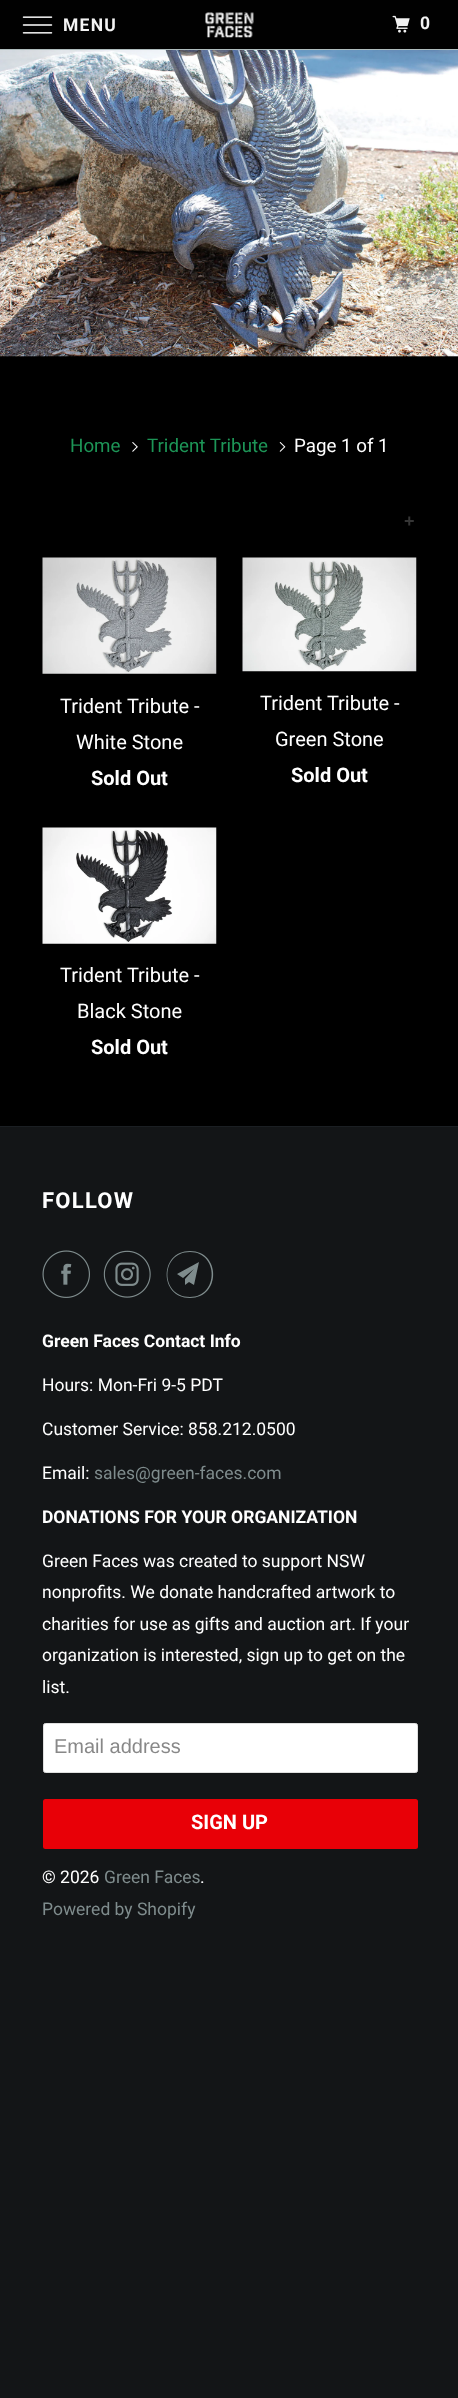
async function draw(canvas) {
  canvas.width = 458;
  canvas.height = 2398;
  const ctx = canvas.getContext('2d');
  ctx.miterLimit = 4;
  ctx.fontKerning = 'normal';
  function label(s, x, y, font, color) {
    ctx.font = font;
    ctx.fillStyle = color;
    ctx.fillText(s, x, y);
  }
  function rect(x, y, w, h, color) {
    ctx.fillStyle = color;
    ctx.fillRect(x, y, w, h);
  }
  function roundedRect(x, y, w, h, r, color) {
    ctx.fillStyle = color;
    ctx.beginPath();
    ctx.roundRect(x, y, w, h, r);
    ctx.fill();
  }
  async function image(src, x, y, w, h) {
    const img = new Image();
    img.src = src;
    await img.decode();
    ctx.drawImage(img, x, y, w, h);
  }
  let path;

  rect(0, 0, 458, 2398, '#131517');
  rect(0, 0, 458, 49, '#010101');
  rect(0, 49, 458, 1, '#b0bdbd');
  await image('assets/img1.png', 22, 16, 31, 18);
  ctx.letterSpacing = '1.25px';
  label('MENU', 63, 31, 'bold 17.5px Roboto', '#f3f3f3');
  await image('assets/img2.png', 205, 12, 49, 26);
  await image('assets/img3.png', 392, 15, 18, 18);
  label('0', 420, 29, 'bold 17.5px Roboto', '#f3f3f3');
  rect(0, 356, 458, 770, '#000');
  await image('assets/img4.png', 0, 356, 458, 1);
  await image('assets/img5.png', 0, 50, 458, 307);
  ctx.letterSpacing = '0px';
  label('Home', 70, 452, '18.75px Roboto', '#1d9557');
  await image('assets/img6.png', 132, 442, 6, 10);
  label('Trident Tribute', 147, 452, '18.75px Roboto', '#1d9557');
  await image('assets/img7.png', 279, 442, 7, 10);
  label('Page 1 of 1', 294, 452, '18.75px Roboto', '#fff');
  ctx.letterSpacing = '2px';
  label('+', 404, 527, 'bold 18px Liberation Sans', '#363636');
  await image('assets/img8.png', 42, 557, 175, 117);
  ctx.letterSpacing = '0px';
  label('Trident Tribute -', 60, 713, '20px Roboto', '#fff');
  label('White Stone', 76, 749, '20px Roboto', '#fff');
  label('Sold Out', 91, 785, 'bold 20px Roboto', '#fff');
  await image('assets/img9.png', 242, 557, 175, 115);
  label('Trident Tribute -', 260, 710, '20px Roboto', '#fff');
  label('Green Stone', 275, 746, '20px Roboto', '#fff');
  label('Sold Out', 291, 782, 'bold 20px Roboto', '#fff');
  await image('assets/img10.png', 42, 827, 175, 117);
  label('Trident Tribute -', 60, 982, '20px Roboto', '#fff');
  label('Black Stone', 77, 1018, '20px Roboto', '#fff');
  label('Sold Out', 91, 1054, 'bold 20px Roboto', '#fff');
  rect(0, 1126, 458, 1, '#1b1f23');
  ctx.letterSpacing = '1.25px';
  label('FOLLOW', 42, 1208, 'bold 22px Roboto', '#fff');
  await image('assets/img11.png', 42, 1250, 48, 48);
  await image('assets/img12.png', 103, 1250, 48, 48);
  ctx.fillStyle = '#7f8c8d';
  path = new Path2D('M194 1285L189 1282L185 1285V1279L194 1269L183 1278L177 1274L199 1262ZM190 1252C160 1252 160 1297 190 1297C219 1297 219 1252 190 1252ZM190 1298C159 1298 159 1251 190 1251C221 1251 221 1298 190 1298Z');
  ctx.fill(path);
  ctx.letterSpacing = '0px';
  label('Green Faces Contact Info', 42, 1347, 'bold 17.5px Roboto', '#fff');
  label('Hours: Mon-Fri 9-5 PDT', 42, 1391, '17.5px Roboto', '#fff');
  label('Customer Service: 858.212.0500', 42, 1435, '17.5px Roboto', '#fff');
  label('Email:', 42, 1479, '17.5px Roboto', '#fff');
  label('sales@green-faces.com', 94, 1479, '17.5px Roboto', '#7f8c8d');
  label('DONATIONS FOR YOUR ORGANIZATION', 42, 1523, 'bold 17.5px Roboto', '#fff');
  label('Green Faces was created to support NSW', 42, 1567, '17.5px Roboto', '#fff');
  label('nonprofits. We donate handcrafted artwork to', 42, 1598, '17.5px Roboto', '#fff');
  label('charities for use as gifts and auction art. If your', 42, 1630, '17.5px Roboto', '#fff');
  label('organization is interested, sign up to get on the', 42, 1661, '17.5px Roboto', '#fff');
  label('list.', 42, 1693, '17.5px Roboto', '#fff');
  ctx.beginPath();
  ctx.roundRect(43.5, 1723.5, 374, 49, 2);
  ctx.fill();
  ctx.strokeStyle = '#dfdfdf';
  ctx.stroke();
  label('Email address', 54, 1753, '20px Liberation Sans', '#888');
  roundedRect(43, 1799, 375, 50, 2.5, '#e80007');
  label('SIGN UP', 191, 1829, 'bold 20px Roboto', '#fff');
  label('© 2026', 42, 1883, '17.5px Roboto', '#fff');
  label('Green Faces', 104, 1883, '17.5px Roboto', '#7f8c8d');
  label('.', 200, 1883, '17.5px Roboto', '#fff');
  label('Powered by Shopify', 42, 1915, '17.5px Roboto', '#7f8c8d');
}

draw(document.querySelector('canvas'));
